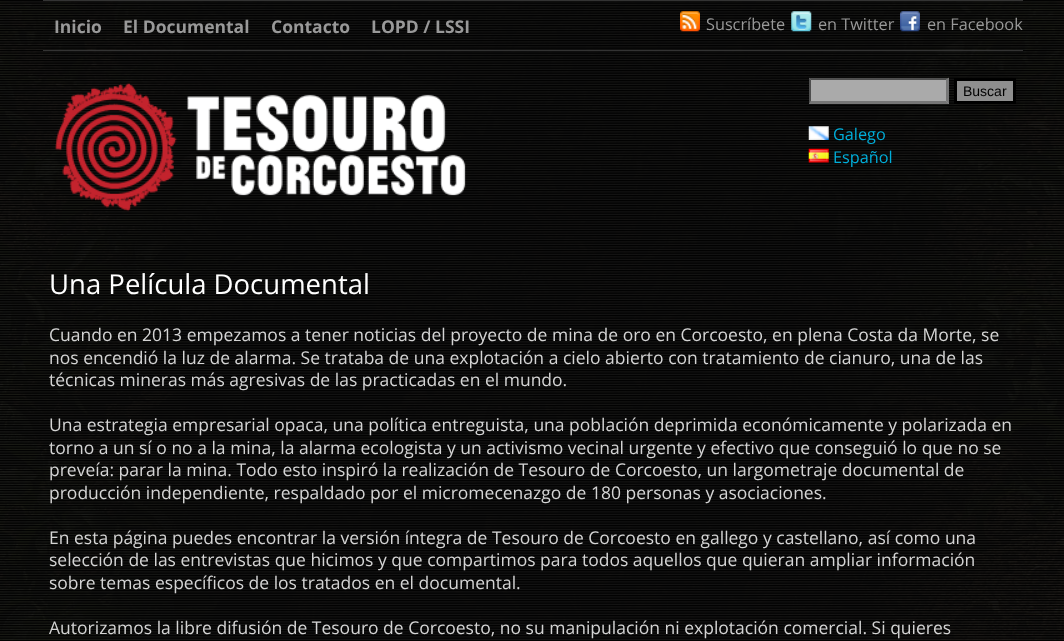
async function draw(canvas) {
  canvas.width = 1064;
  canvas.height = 641;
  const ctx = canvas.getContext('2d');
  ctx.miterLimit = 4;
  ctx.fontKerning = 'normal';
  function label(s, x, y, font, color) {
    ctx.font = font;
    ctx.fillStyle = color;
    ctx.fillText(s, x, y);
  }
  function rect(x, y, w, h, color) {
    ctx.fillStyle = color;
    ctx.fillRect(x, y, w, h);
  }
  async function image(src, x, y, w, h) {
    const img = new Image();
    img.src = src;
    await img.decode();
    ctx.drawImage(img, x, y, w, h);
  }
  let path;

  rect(0, 0, 1064, 641, '#171717');
  await image('assets/img1.png', 0, 0, 1064, 641);
  await image('assets/img2.png', 0, 0, 1064, 641);
  rect(43, 50, 980, 1, '#333');
  label('Inicio', 54, 33, 'bold 17.5px Open Sans', '#999');
  label('El Documental', 123, 33, 'bold 17.5px Open Sans', '#999');
  label('Contacto', 271, 33, 'bold 17.5px Open Sans', '#999');
  label('LOPD / LSSI', 371, 33, 'bold 17.5px Open Sans', '#999');
  await image('assets/img3.png', 680, 11, 20, 21);
  label('Suscríbete', 706, 30, '16.25px Open Sans', '#999');
  await image('assets/img4.png', 791, 11, 21, 21);
  label('en Twitter', 818, 30, '16.25px Open Sans', '#999');
  await image('assets/img5.png', 900, 11, 20, 21);
  label('en Facebook', 927, 30, '16.25px Open Sans', '#999');
  rect(43, 0, 980, 1, '#333');
  await image('assets/img6.png', 55, 83, 411, 129);
  rect(809, 78, 140, 26, '#aaa');
  ctx.fillStyle = '#4f4f4f';
  path = new Path2D('M809 78H949L946 80H811Z');
  ctx.fill(path);
  ctx.fillStyle = '#767676';
  path = new Path2D('M949 77.5V104L946 101V80Z');
  ctx.fill(path);
  path = new Path2D('M949 104H809L811 101H946Z');
  ctx.fill(path);
  ctx.fillStyle = '#4f4f4f';
  path = new Path2D('M809 104V77.5L811 80V101Z');
  ctx.fill(path);
  ctx.fillStyle = '#8e8e8e';
  ctx.beginPath();
  ctx.rect(955.5, 79.5, 59, 23);
  ctx.fill();
  ctx.strokeStyle = '#000';
  ctx.lineWidth = 3;
  ctx.stroke();
  label('Buscar', 963, 96, '14px Liberation Sans', '#000');
  await image('assets/img7.png', 808, 126, 21, 14);
  label('Galego', 833, 140, '16.25px Open Sans', '#00aeda');
  await image('assets/img8.png', 808, 148, 21, 15);
  label('Español', 833, 163, '16.25px Open Sans', '#00aeda');
  label('Una Película Documental', 49, 294, '27.5px Open Sans', '#fff');
  label('Cuando en 2013 empezamos a tener noticias del proyecto de mina de oro en Corcoesto, en plena Costa da Morte, se', 49, 341, '17.5px Open Sans', '#d4d4d4');
  label('nos encendió la luz de alarma. Se trataba de una explotación a cielo abierto con tratamiento de cianuro, una de las', 49, 364, '17.5px Open Sans', '#d4d4d4');
  label('técnicas mineras más agresivas de las practicadas en el mundo.', 49, 386, '17.5px Open Sans', '#d4d4d4');
  label('Una estrategia empresarial opaca, una política entreguista, una población deprimida económicamente y polarizada en', 49, 431, '17.5px Open Sans', '#d4d4d4');
  label('torno a un sí o no a la mina, la alarma ecologista y un activismo vecinal urgente y efectivo que conseguió lo que no se', 49, 454, '17.5px Open Sans', '#d4d4d4');
  label('preveía: parar la mina. Todo esto inspiró la realización de Tesouro de Corcoesto, un largometraje documental de', 49, 476, '17.5px Open Sans', '#d4d4d4');
  label('producción independiente, respaldado por el micromecenazgo de 180 personas y asociaciones.', 49, 499, '17.5px Open Sans', '#d4d4d4');
  label('En esta página puedes encontrar la versión íntegra de Tesouro de Corcoesto en gallego y castellano, así como una', 49, 544, '17.5px Open Sans', '#d4d4d4');
  label('selección de las entrevistas que hicimos y que compartimos para todos aquellos que quieran ampliar información', 49, 566, '17.5px Open Sans', '#d4d4d4');
  label('sobre temas específicos de los tratados en el documental.', 49, 589, '17.5px Open Sans', '#d4d4d4');
  label('Autorizamos la libre difusión de Tesouro de Corcoesto, no su manipulación ni explotación comercial. Si quieres', 49, 634, '17.5px Open Sans', '#d4d4d4');
}

draw(document.querySelector('canvas'));
